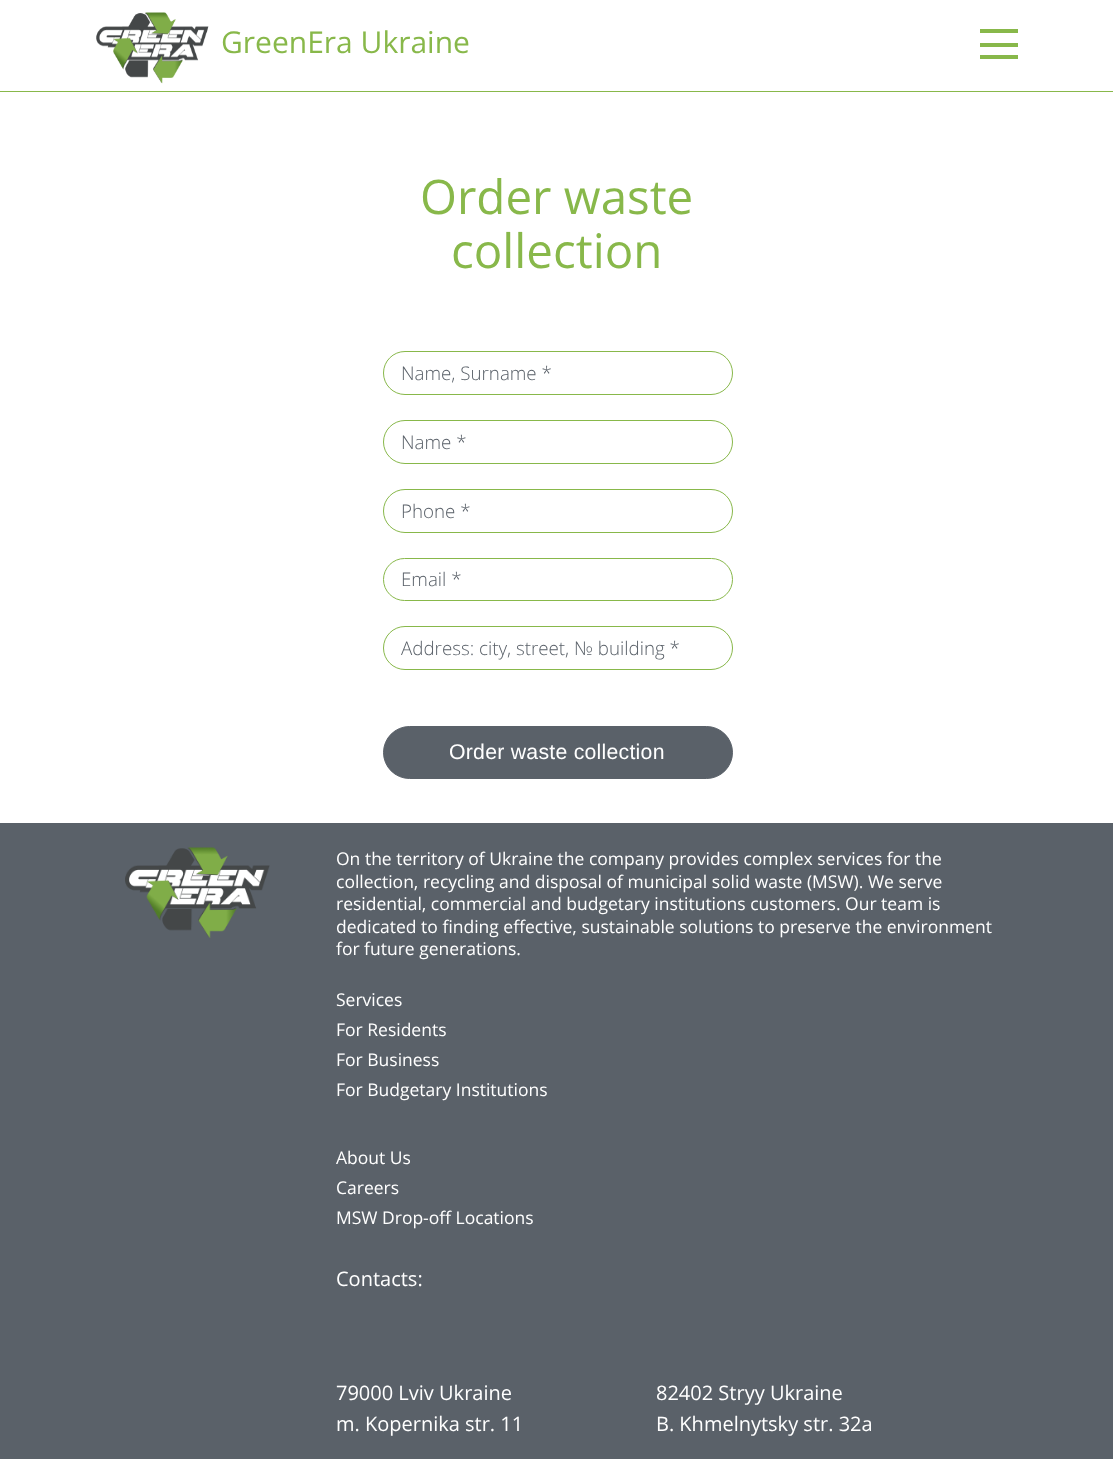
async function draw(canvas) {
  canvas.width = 1113;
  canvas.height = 1459;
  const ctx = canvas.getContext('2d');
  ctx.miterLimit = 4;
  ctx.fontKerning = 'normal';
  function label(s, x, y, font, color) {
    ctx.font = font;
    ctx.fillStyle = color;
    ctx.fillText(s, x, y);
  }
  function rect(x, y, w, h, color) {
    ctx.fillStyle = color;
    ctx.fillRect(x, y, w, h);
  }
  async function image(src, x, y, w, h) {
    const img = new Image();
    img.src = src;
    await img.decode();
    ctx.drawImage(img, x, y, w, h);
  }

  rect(0, 0, 1113, 1459, '#fff');
  rect(0, 91, 1113, 1, '#88b84a');
  await image('assets/img1.png', 96, 12, 113, 72);
  label('GreenEra Ukraine', 221, 53, '30px Open Sans', '#88b84a');
  rect(980, 29, 38, 4, '#88b84a');
  rect(980, 43, 38, 4, '#88b84a');
  rect(980, 55, 38, 4, '#88b84a');
  label('Order waste', 420, 214, '47.5px Open Sans', '#88b84a');
  label('collection', 451, 268, '47.5px Open Sans', '#88b84a');
  ctx.beginPath();
  ctx.roundRect(383.5, 351.5, 349, 43, 21.5);
  ctx.strokeStyle = '#88b84a';
  ctx.stroke();
  label('Name, Surname *', 401, 380, '300 18.75px Open Sans', '#5a6169');
  ctx.beginPath();
  ctx.roundRect(383.5, 420.5, 349, 43, 21.5);
  ctx.stroke();
  label('Name *', 401, 449, '300 18.75px Open Sans', '#5a6169');
  ctx.beginPath();
  ctx.roundRect(383.5, 489.5, 349, 43, 21.5);
  ctx.stroke();
  label('Phone *', 401, 518, '300 18.75px Open Sans', '#5a6169');
  ctx.beginPath();
  ctx.roundRect(383.5, 558.5, 349, 42, 21);
  ctx.stroke();
  label('Email *', 401, 586, '300 18.75px Open Sans', '#5a6169');
  ctx.beginPath();
  ctx.roundRect(383.5, 626.5, 349, 43, 21.5);
  ctx.stroke();
  label('Address: city, street, № building *', 401, 655, '300 18.75px Open Sans', '#5a6169');
  ctx.beginPath();
  ctx.roundRect(383.5, 726.5, 349, 52, 26);
  ctx.fill();
  ctx.strokeStyle = '#5a6169';
  ctx.stroke();
  ctx.letterSpacing = '0.25px';
  label('Order waste collection', 449, 759, '21.25px Liberation Sans', '#fff');
  rect(0, 823, 1113, 636, '#5a6169');
  await image('assets/img2.png', 125, 847, 145, 91);
  ctx.letterSpacing = '0px';
  label('On the territory of Ukraine the company provides complex services for the', 336, 865, '17.5px Open Sans', '#fff');
  label('collection, recycling and disposal of municipal solid waste (MSW). We serve', 336, 888, '17.5px Open Sans', '#fff');
  label('residential, commercial and budgetary institutions customers. Our team is', 336, 910, '17.5px Open Sans', '#fff');
  label('dedicated to finding effective, sustainable solutions to preserve the environment', 336, 933, '17.5px Open Sans', '#fff');
  label('for future generations.', 336, 955, '17.5px Open Sans', '#fff');
  label('Services', 336, 1006, '17.5px Open Sans', '#fff');
  label('For Residents', 336, 1036, '17.5px Open Sans', '#fff');
  label('For Business', 336, 1066, '17.5px Open Sans', '#fff');
  label('For Budgetary Institutions', 336, 1096, '17.5px Open Sans', '#fff');
  label('About Us', 336, 1164, '17.5px Open Sans', '#fff');
  label('Careers', 336, 1194, '17.5px Open Sans', '#fff');
  label('MSW Drop-off Locations', 336, 1224, '17.5px Open Sans', '#fff');
  label('Contacts:', 336, 1286, '20px Open Sans', '#fff');
  label('79000 Lviv Ukraine', 336, 1400, '20px Open Sans', '#fff');
  label('m. Kopernika str. 11', 336, 1431, '20px Open Sans', '#fff');
  label('82402 Stryy Ukraine', 656, 1400, '20px Open Sans', '#fff');
  label('B. Khmelnytsky str. 32a', 656, 1431, '20px Open Sans', '#fff');
}

draw(document.querySelector('canvas'));
